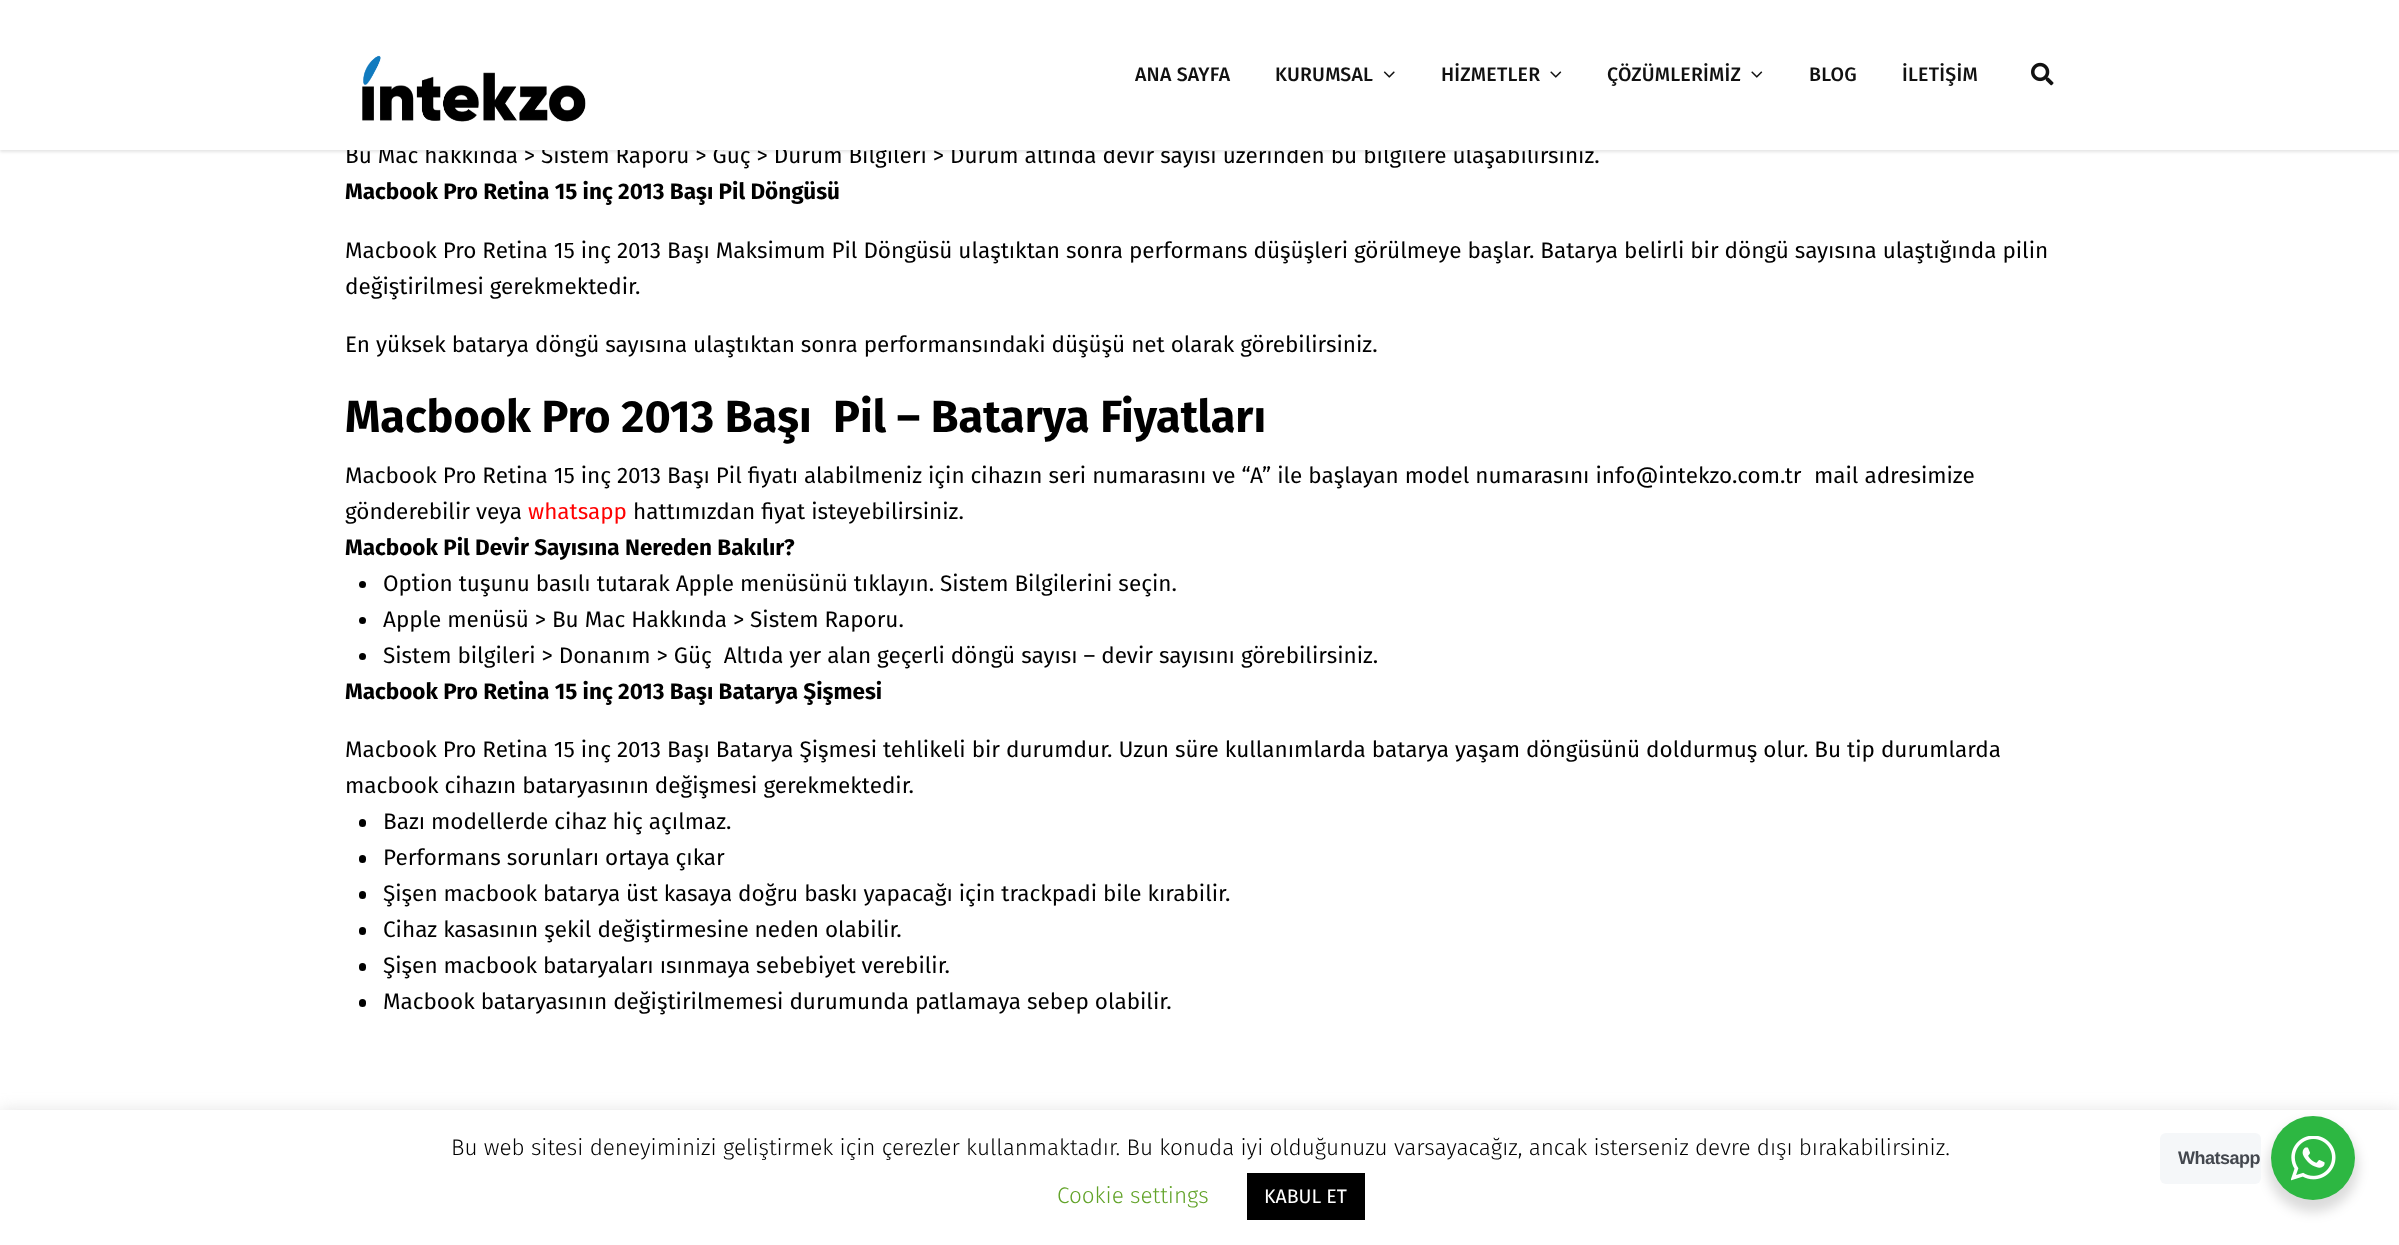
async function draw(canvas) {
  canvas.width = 2399;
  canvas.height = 1245;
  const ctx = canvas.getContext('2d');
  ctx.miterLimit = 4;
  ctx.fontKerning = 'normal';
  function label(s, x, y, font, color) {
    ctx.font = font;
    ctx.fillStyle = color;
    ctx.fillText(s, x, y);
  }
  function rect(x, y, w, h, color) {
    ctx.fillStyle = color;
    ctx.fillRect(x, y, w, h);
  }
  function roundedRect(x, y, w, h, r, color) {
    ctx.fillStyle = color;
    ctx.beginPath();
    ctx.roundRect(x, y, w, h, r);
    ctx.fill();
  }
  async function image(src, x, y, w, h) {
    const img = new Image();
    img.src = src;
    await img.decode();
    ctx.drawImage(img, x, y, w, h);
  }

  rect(0, 0, 2399, 1245, '#fff');
  ctx.fillStyle = '#0000001a';
  ctx.filter = 'blur(1.5px)';
  ctx.beginPath();
  ctx.rect(0, 2, 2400, 150);
  ctx.fill();
  ctx.filter = 'none';
  label('Bu Mac hakkında > Sistem Raporu > Güç > Durum Bilgileri > Durum altında devir sayısı üzerinden bu bilgilere ulaşabilirsiniz.', 345, 163, '22.5px Fira Sans', '#000');
  rect(0, 0, 2399, 150, '#fff');
  await image('assets/img1.png', 362, 55, 224, 67);
  ctx.letterSpacing = '0.25px';
  label('ANA SAYFA', 1135, 81, '500 19.5px Fira Sans', '#111');
  label('KURUMSAL', 1275, 81, '500 19.5px Fira Sans', '#111');
  await image('assets/img2.png', 1383, 71, 12, 7);
  label('HİZMETLER', 1441, 81, '500 19.5px Fira Sans', '#111');
  await image('assets/img3.png', 1550, 71, 12, 7);
  label('ÇÖZÜMLERİMİZ', 1607, 81, '500 19.5px Fira Sans', '#111');
  await image('assets/img3.png', 1751, 71, 12, 7);
  label('BLOG', 1809, 81, '500 19.5px Fira Sans', '#111');
  label('İLETİŞİM', 1902, 81, '500 19.5px Fira Sans', '#111');
  await image('assets/img4.png', 2031, 62, 23, 24);
  ctx.letterSpacing = '0px';
  label('Macbook Pro Retina 15 inç 2013 Başı Pil Döngüsü', 345, 199, 'bold 22.5px Fira Sans', '#000');
  label('Macbook Pro Retina 15 inç 2013 Başı Maksimum Pil Döngüsü ulaştıktan sonra performans düşüşleri görülmeye başlar. Batarya belirli bir döngü sayısına ulaştığında pilin', 345, 258, '22.5px Fira Sans', '#000');
  label('değiştirilmesi gerekmektedir.', 345, 294, '22.5px Fira Sans', '#000');
  label('En yüksek batarya döngü sayısına ulaştıktan sonra performansındaki düşüşü net olarak görebilirsiniz.', 345, 352, '22.5px Fira Sans', '#000');
  label('Macbook Pro 2013 Başı  Pil – Batarya Fiyatları', 345, 432, 'bold 45px Fira Sans', '#000');
  label('Macbook Pro Retina 15 inç 2013 Başı Pil fiyatı alabilmeniz için cihazın seri numarasını ve “A” ile başlayan model numarasını info@intekzo.com.tr', 345, 483, '22.5px Fira Sans', '#000');
  label('mail adresimize', 1814, 483, '22.5px Fira Sans', '#000');
  label('gönderebilir veya', 345, 519, '22.5px Fira Sans', '#000');
  label('whatsapp', 528, 519, '22.5px Fira Sans', '#f00');
  label('hattımızdan fiyat isteyebilirsiniz.', 633, 519, '22.5px Fira Sans', '#000');
  label('Macbook Pil Devir Sayısına Nereden Bakılır?', 345, 555, 'bold 22.5px Fira Sans', '#000');
  ctx.beginPath();
  ctx.arc(362.5, 584.5, 3.5, 0, 2 * Math.PI);
  ctx.fill();
  label('Option tuşunu basılı tutarak Apple menüsünü tıklayın. Sistem Bilgilerini seçin.', 383, 591, '22.5px Fira Sans', '#000');
  ctx.beginPath();
  ctx.arc(362.5, 620.5, 3.5, 0, 2 * Math.PI);
  ctx.fill();
  label('Apple menüsü > Bu Mac Hakkında > Sistem Raporu.', 383, 627, '22.5px Fira Sans', '#000');
  ctx.beginPath();
  ctx.arc(362.5, 656.5, 3.5, 0, 2 * Math.PI);
  ctx.fill();
  label('Sistem bilgileri > Donanım > Güç  Altıda yer alan geçerli döngü sayısı – devir sayısını görebilirsiniz.', 383, 663, '22.5px Fira Sans', '#000');
  label('Macbook Pro Retina 15 inç 2013 Başı Batarya Şişmesi', 345, 699, 'bold 22.5px Fira Sans', '#000');
  label('Macbook Pro Retina 15 inç 2013 Başı Batarya Şişmesi tehlikeli bir durumdur. Uzun süre kullanımlarda batarya yaşam döngüsünü doldurmuş olur. Bu tip durumlarda', 345, 757, '22.5px Fira Sans', '#000');
  label('macbook cihazın bataryasının değişmesi gerekmektedir.', 345, 793, '22.5px Fira Sans', '#000');
  roundedRect(359, 819, 7, 8, 3.5, '#000');
  label('Bazı modellerde cihaz hiç açılmaz.', 383, 829, '22.5px Fira Sans', '#000');
  roundedRect(359, 855, 7, 8, 3.5, '#000');
  label('Performans sorunları ortaya çıkar', 383, 865, '22.5px Fira Sans', '#000');
  roundedRect(359, 891, 7, 8, 3.5, '#000');
  label('Şişen macbook batarya üst kasaya doğru baskı yapacağı için trackpadi bile kırabilir.', 383, 901, '22.5px Fira Sans', '#000');
  roundedRect(359, 927, 7, 8, 3.5, '#000');
  label('Cihaz kasasının şekil değiştirmesine neden olabilir.', 383, 937, '22.5px Fira Sans', '#000');
  roundedRect(359, 963, 7, 8, 3.5, '#000');
  label('Şişen macbook bataryaları ısınmaya sebebiyet verebilir.', 383, 973, '22.5px Fira Sans', '#000');
  roundedRect(359, 999, 7, 8, 3.5, '#000');
  label('Macbook bataryasının değiştirilmemesi durumunda patlamaya sebep olabilir.', 383, 1009, '22.5px Fira Sans', '#000');
  ctx.fillStyle = '#acabab4d';
  ctx.filter = 'blur(7.5px)';
  ctx.beginPath();
  ctx.rect(0, 1109, 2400, 135);
  ctx.fill();
  ctx.filter = 'none';
  rect(0, 1110, 2399, 135, '#fff');
  label('Bu web sitesi deneyiminizi geliştirmek için çerezler kullanmaktadır. Bu konuda iyi olduğunuzu varsayacağız, ancak isterseniz devre dışı bırakabilirsiniz.', 451, 1155, '300 22.5px Fira Sans', '#000');
  label('Cookie settings', 1057, 1203, '300 22.5px Fira Sans', '#62a329');
  rect(1247, 1173, 118, 47, '#000');
  label('KABUL ET', 1264, 1203, '19.5px Fira Sans', '#fff');
  ctx.fillStyle = '#00000024';
  ctx.filter = 'blur(6px)';
  ctx.beginPath();
  ctx.roundRect(2268, 1122, 90, 90, 45);
  ctx.fill();
  ctx.filter = 'none';
  roundedRect(2160, 1133, 101, 51, 6, '#f5f7f9');
  ctx.letterSpacing = '-0.5px';
  label('Whatsapp', 2178, 1164, 'bold 18px Liberation Sans', '#43474e');
  ctx.fillStyle = '#2db742';
  ctx.beginPath();
  ctx.arc(2313, 1158, 42, 0, 2 * Math.PI);
  ctx.fill();
  await image('assets/img5.png', 2291, 1136, 45, 45);
}

draw(document.querySelector('canvas'));
